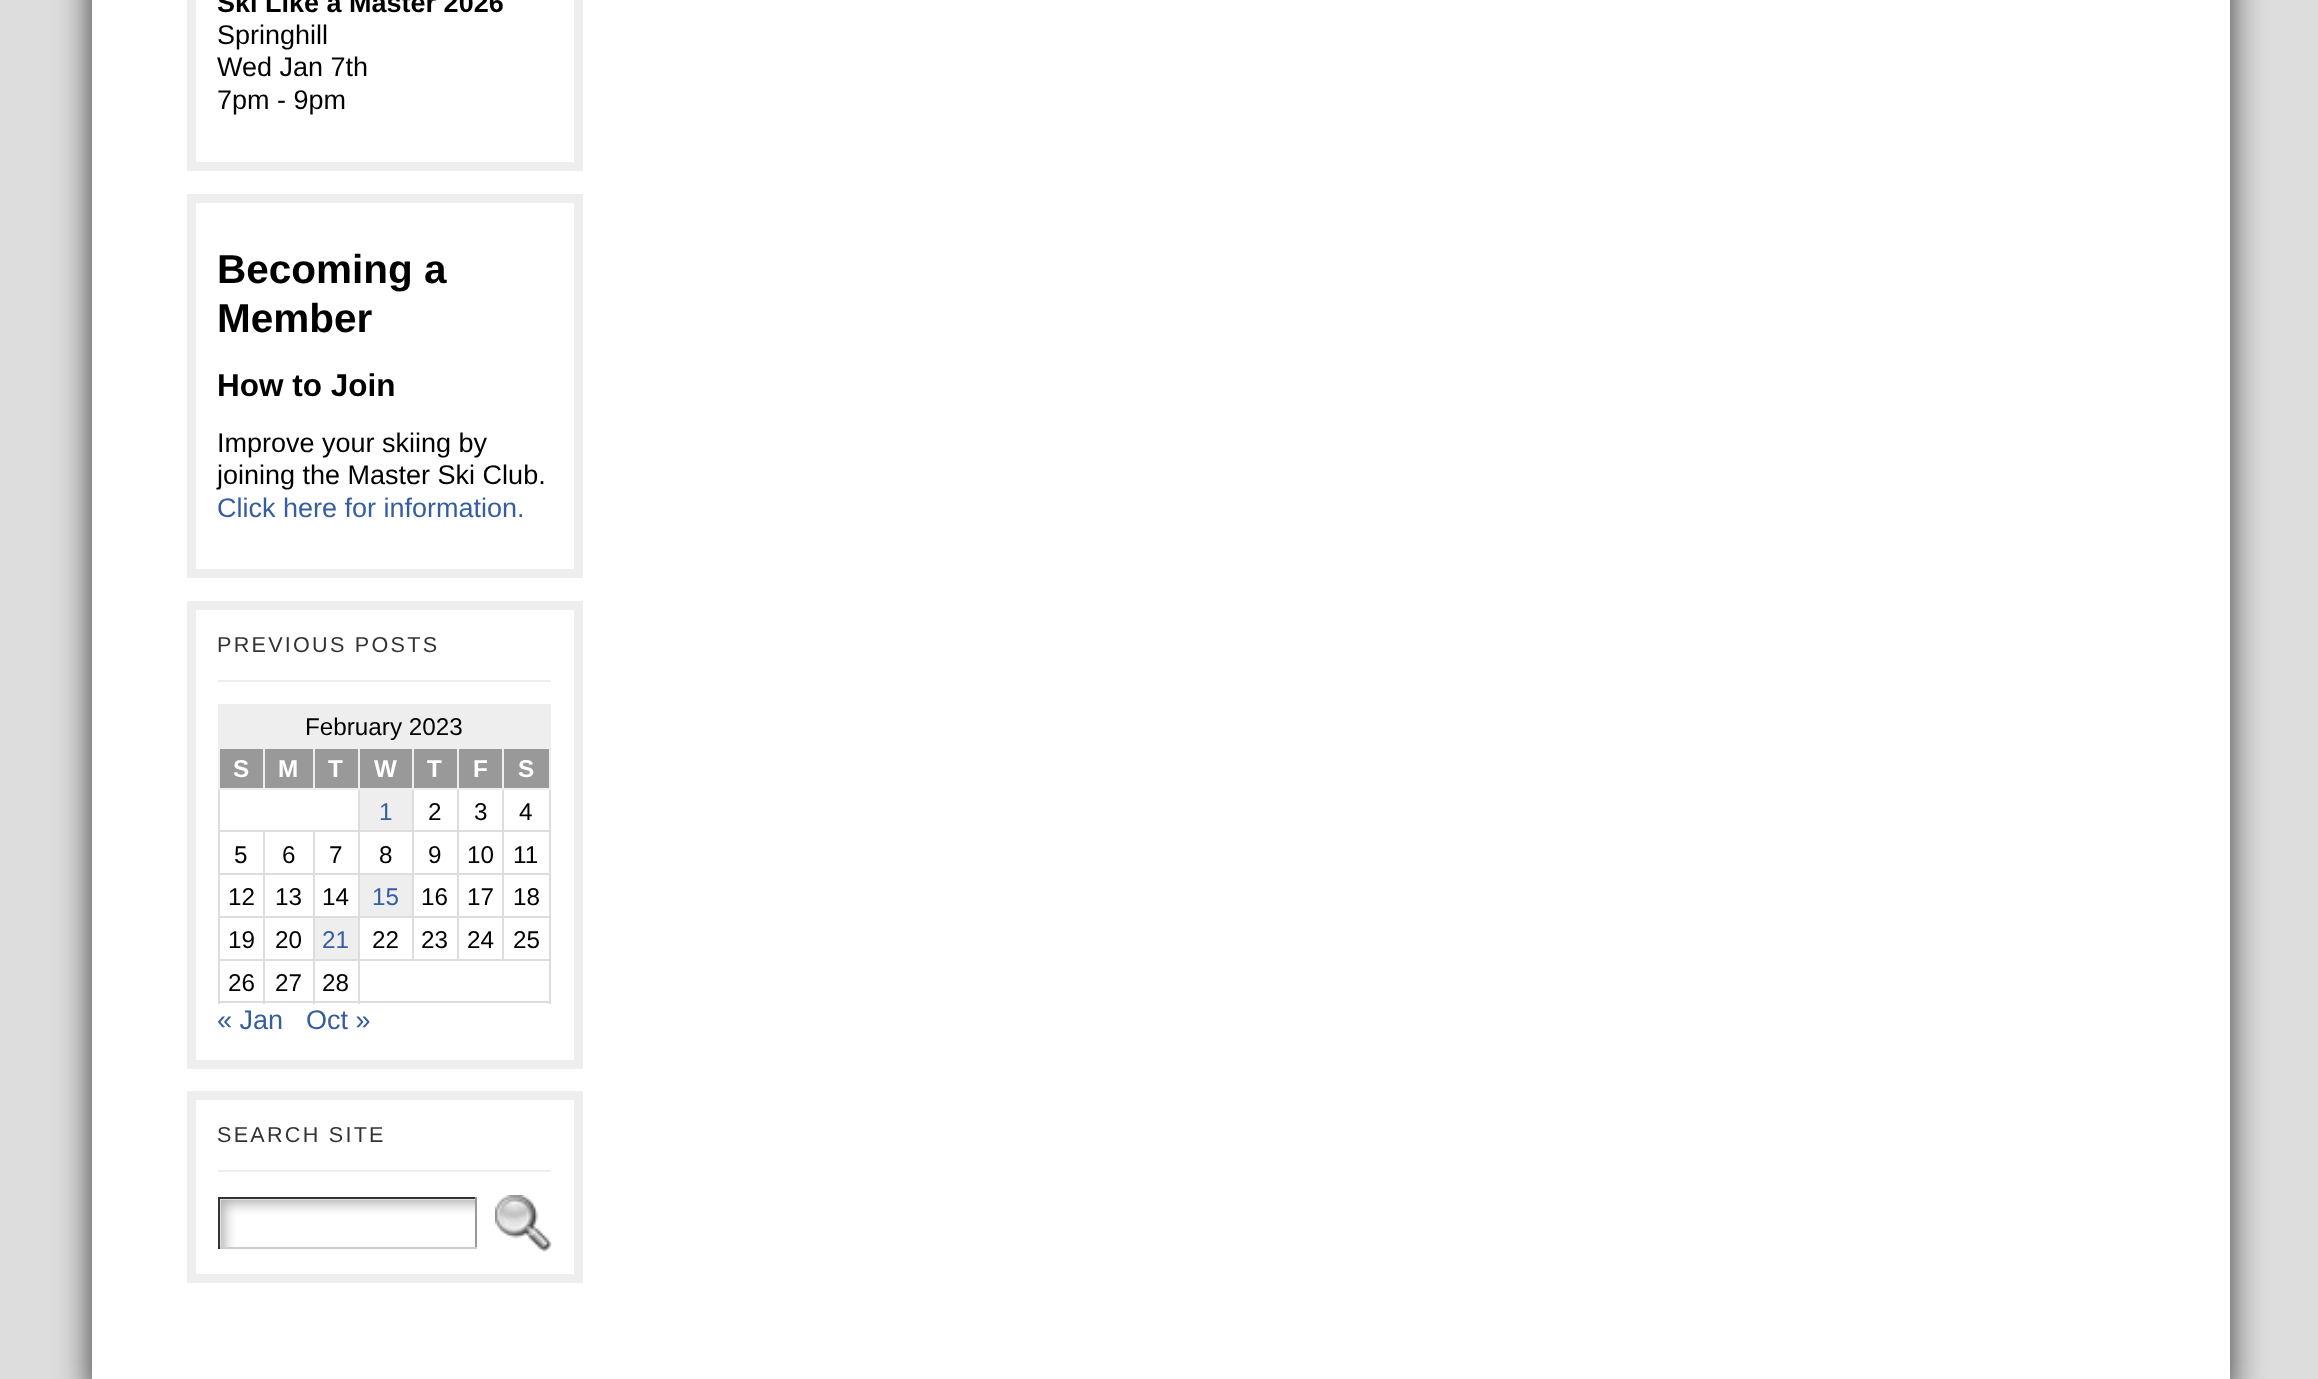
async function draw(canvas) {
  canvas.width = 2318;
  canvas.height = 1379;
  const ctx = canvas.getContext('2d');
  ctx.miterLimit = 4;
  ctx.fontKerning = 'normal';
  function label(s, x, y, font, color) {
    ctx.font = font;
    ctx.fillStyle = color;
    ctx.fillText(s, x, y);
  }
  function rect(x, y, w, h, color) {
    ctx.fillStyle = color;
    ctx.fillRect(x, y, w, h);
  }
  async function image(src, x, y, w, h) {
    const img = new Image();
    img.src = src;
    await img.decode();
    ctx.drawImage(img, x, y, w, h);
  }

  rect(0, 0, 2318, 1379, '#ddd');
  ctx.fillStyle = '#333';
  ctx.filter = 'blur(17px)';
  ctx.beginPath();
  ctx.rect(92, -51, 2138, 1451);
  ctx.fill();
  ctx.filter = 'none';
  rect(92, 0, 2138, 1379, '#fff');
  ctx.strokeStyle = '#eee';
  ctx.lineWidth = 9;
  ctx.strokeRect(191.5, -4.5, 387, 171);
  label('Ski Like a Master 2026', 217, 12, 'bold 27px Liberation Sans', '#000');
  label('Springhill', 217, 44, '27px Liberation Sans', '#000');
  label('Wed Jan 7th', 217, 76, '27px Liberation Sans', '#000');
  label('7pm - 9pm', 217, 109, '27px Liberation Sans', '#000');
  ctx.strokeRect(191.5, 198.5, 387, 375);
  label('Becoming a', 217, 283, 'bold 40.5px Liberation Sans', '#000');
  label('Member', 217, 332, 'bold 40.5px Liberation Sans', '#000');
  label('How to Join', 217, 396, 'bold 31.5px Liberation Sans', '#000');
  label('Improve your skiing by', 217, 452, '27px Liberation Sans', '#000');
  label('joining the Master Ski Club.', 217, 484, '27px Liberation Sans', '#000');
  label('Click here for information.', 217, 517, '27px Liberation Sans', '#365da0');
  ctx.strokeRect(191.5, 605.5, 387, 459);
  rect(218, 680, 333, 2, '#eee');
  ctx.letterSpacing = '2.25px';
  label('PREVIOUS POSTS', 217, 652, '21.6px Liberation Sans', '#333');
  rect(218, 704, 333, 43, '#eee');
  ctx.letterSpacing = '0px';
  label('February 2023', 305, 735, '24.25px Liberation Sans', '#000');
  rect(220, 749, 43, 39, '#999');
  rect(502, 747, 49, 2, '#eee');
  rect(502, 830, 49, 2, '#ddd');
  rect(502, 873, 49, 2, '#ddd');
  rect(502, 916, 49, 2, '#ddd');
  rect(358, 959, 193, 2, '#ddd');
  rect(549, 959, 2, 45, '#ddd');
  rect(549, 916, 2, 45, '#ddd');
  rect(549, 873, 2, 45, '#ddd');
  rect(549, 788, 2, 87, '#ddd');
  rect(549, 747, 2, 43, '#eee');
  rect(502, 916, 2, 45, '#ddd');
  rect(457, 916, 47, 2, '#ddd');
  rect(502, 873, 2, 45, '#ddd');
  rect(457, 873, 47, 2, '#ddd');
  rect(502, 830, 2, 45, '#ddd');
  rect(457, 830, 47, 2, '#ddd');
  rect(502, 788, 2, 45, '#ddd');
  rect(502, 788, 49, 2, '#eee');
  rect(502, 747, 2, 43, '#eee');
  rect(457, 747, 47, 2, '#eee');
  rect(457, 916, 2, 45, '#ddd');
  rect(412, 916, 47, 2, '#ddd');
  rect(457, 873, 2, 45, '#ddd');
  rect(412, 873, 47, 2, '#ddd');
  rect(457, 830, 2, 45, '#ddd');
  rect(412, 830, 47, 2, '#ddd');
  rect(457, 788, 2, 45, '#ddd');
  rect(457, 788, 47, 2, '#eee');
  rect(457, 747, 2, 43, '#eee');
  rect(412, 747, 47, 2, '#eee');
  rect(412, 916, 2, 45, '#ddd');
  rect(358, 916, 56, 2, '#ddd');
  rect(412, 873, 2, 45, '#ddd');
  rect(358, 873, 56, 2, '#ddd');
  rect(412, 830, 2, 45, '#ddd');
  rect(358, 830, 56, 2, '#ddd');
  rect(412, 788, 2, 45, '#ddd');
  rect(412, 788, 47, 2, '#eee');
  rect(412, 747, 2, 43, '#eee');
  rect(358, 747, 56, 2, '#eee');
  rect(358, 1001, 193, 2, '#ddd');
  rect(358, 959, 2, 45, '#ddd');
  rect(313, 959, 47, 2, '#ddd');
  rect(358, 916, 2, 45, '#ddd');
  rect(313, 916, 47, 2, '#ddd');
  rect(358, 873, 2, 45, '#ddd');
  rect(313, 873, 47, 2, '#ddd');
  rect(358, 830, 2, 45, '#ddd');
  rect(313, 830, 47, 2, '#ddd');
  rect(358, 788, 2, 45, '#ddd');
  rect(358, 788, 56, 2, '#eee');
  rect(358, 747, 2, 43, '#eee');
  rect(313, 747, 47, 2, '#eee');
  rect(313, 788, 47, 2, '#eee');
  rect(313, 747, 2, 43, '#eee');
  rect(263, 747, 52, 2, '#eee');
  rect(263, 788, 52, 2, '#eee');
  rect(263, 747, 2, 43, '#eee');
  rect(218, 747, 48, 2, '#eee');
  rect(313, 1001, 47, 2, '#ddd');
  rect(313, 959, 2, 45, '#ddd');
  rect(263, 959, 52, 2, '#ddd');
  rect(313, 916, 2, 45, '#ddd');
  rect(263, 916, 52, 2, '#ddd');
  rect(313, 873, 2, 45, '#ddd');
  rect(263, 873, 52, 2, '#ddd');
  rect(313, 830, 2, 45, '#ddd');
  rect(263, 830, 52, 2, '#ddd');
  rect(263, 1001, 52, 2, '#ddd');
  rect(263, 959, 2, 45, '#ddd');
  rect(218, 959, 48, 2, '#ddd');
  rect(263, 916, 2, 45, '#ddd');
  rect(218, 916, 48, 2, '#ddd');
  rect(263, 873, 2, 45, '#ddd');
  rect(218, 873, 48, 2, '#ddd');
  rect(263, 830, 2, 45, '#ddd');
  rect(218, 830, 48, 2, '#ddd');
  rect(218, 1001, 48, 2, '#ddd');
  rect(218, 959, 2, 45, '#ddd');
  rect(218, 916, 2, 45, '#ddd');
  rect(218, 873, 2, 45, '#ddd');
  rect(218, 788, 2, 87, '#ddd');
  rect(218, 788, 48, 2, '#eee');
  rect(218, 747, 2, 43, '#eee');
  label('S', 233, 777, 'bold 24.25px Liberation Sans', '#fff');
  rect(265, 749, 48, 39, '#999');
  label('M', 278, 777, 'bold 24.25px Liberation Sans', '#fff');
  rect(315, 749, 43, 39, '#999');
  label('T', 328, 777, 'bold 24.25px Liberation Sans', '#fff');
  rect(360, 749, 52, 39, '#999');
  label('W', 374, 777, 'bold 24.25px Liberation Sans', '#fff');
  rect(414, 749, 43, 39, '#999');
  label('T', 427, 777, 'bold 24.25px Liberation Sans', '#fff');
  rect(459, 749, 43, 39, '#999');
  label('F', 473, 777, 'bold 24.25px Liberation Sans', '#fff');
  rect(504, 749, 45, 39, '#999');
  label('S', 518, 777, 'bold 24.25px Liberation Sans', '#fff');
  rect(360, 790, 52, 40, '#eee');
  label('1', 379, 820, '24.25px Liberation Sans', '#365da0');
  label('2', 428, 820, '24.25px Liberation Sans', '#000');
  label('3', 474, 820, '24.25px Liberation Sans', '#000');
  label('4', 519, 820, '24.25px Liberation Sans', '#000');
  label('5', 234, 863, '24.25px Liberation Sans', '#000');
  label('6', 282, 863, '24.25px Liberation Sans', '#000');
  label('7', 329, 863, '24.25px Liberation Sans', '#000');
  label('8', 379, 863, '24.25px Liberation Sans', '#000');
  label('9', 428, 863, '24.25px Liberation Sans', '#000');
  label('10', 467, 863, '24.25px Liberation Sans', '#000');
  label('11', 513, 863, '24.25px Liberation Sans', '#000');
  label('12', 228, 905, '24.25px Liberation Sans', '#000');
  label('13', 275, 905, '24.25px Liberation Sans', '#000');
  label('14', 322, 905, '24.25px Liberation Sans', '#000');
  rect(360, 875, 52, 41, '#eee');
  label('15', 372, 905, '24.25px Liberation Sans', '#365da0');
  label('16', 421, 905, '24.25px Liberation Sans', '#000');
  label('17', 467, 905, '24.25px Liberation Sans', '#000');
  label('18', 513, 905, '24.25px Liberation Sans', '#000');
  label('19', 228, 948, '24.25px Liberation Sans', '#000');
  label('20', 275, 948, '24.25px Liberation Sans', '#000');
  rect(315, 918, 43, 41, '#eee');
  label('21', 322, 948, '24.25px Liberation Sans', '#365da0');
  label('22', 372, 948, '24.25px Liberation Sans', '#000');
  label('23', 421, 948, '24.25px Liberation Sans', '#000');
  label('24', 467, 948, '24.25px Liberation Sans', '#000');
  label('25', 513, 948, '24.25px Liberation Sans', '#000');
  label('26', 228, 991, '24.25px Liberation Sans', '#000');
  label('27', 275, 991, '24.25px Liberation Sans', '#000');
  label('28', 322, 991, '24.25px Liberation Sans', '#000');
  label('« Jan', 217, 1029, '27px Liberation Sans', '#365da0');
  label('Oct »', 306, 1029, '27px Liberation Sans', '#365da0');
  ctx.strokeRect(191.5, 1095.5, 387, 183);
  rect(218, 1170, 333, 2, '#eee');
  ctx.letterSpacing = '2.25px';
  label('SEARCH SITE', 217, 1142, '21.6px Liberation Sans', '#333');
  await image('assets/img1.png', 220, 1199, 255, 48);
  rect(218, 1197, 259, 2, '#333');
  rect(475, 1197, 2, 52, '#999');
  rect(218, 1247, 259, 2, '#ccc');
  rect(218, 1197, 2, 52, '#333');
  await image('assets/img2.png', 495, 1195, 57, 57);
}

draw(document.querySelector('canvas'));
